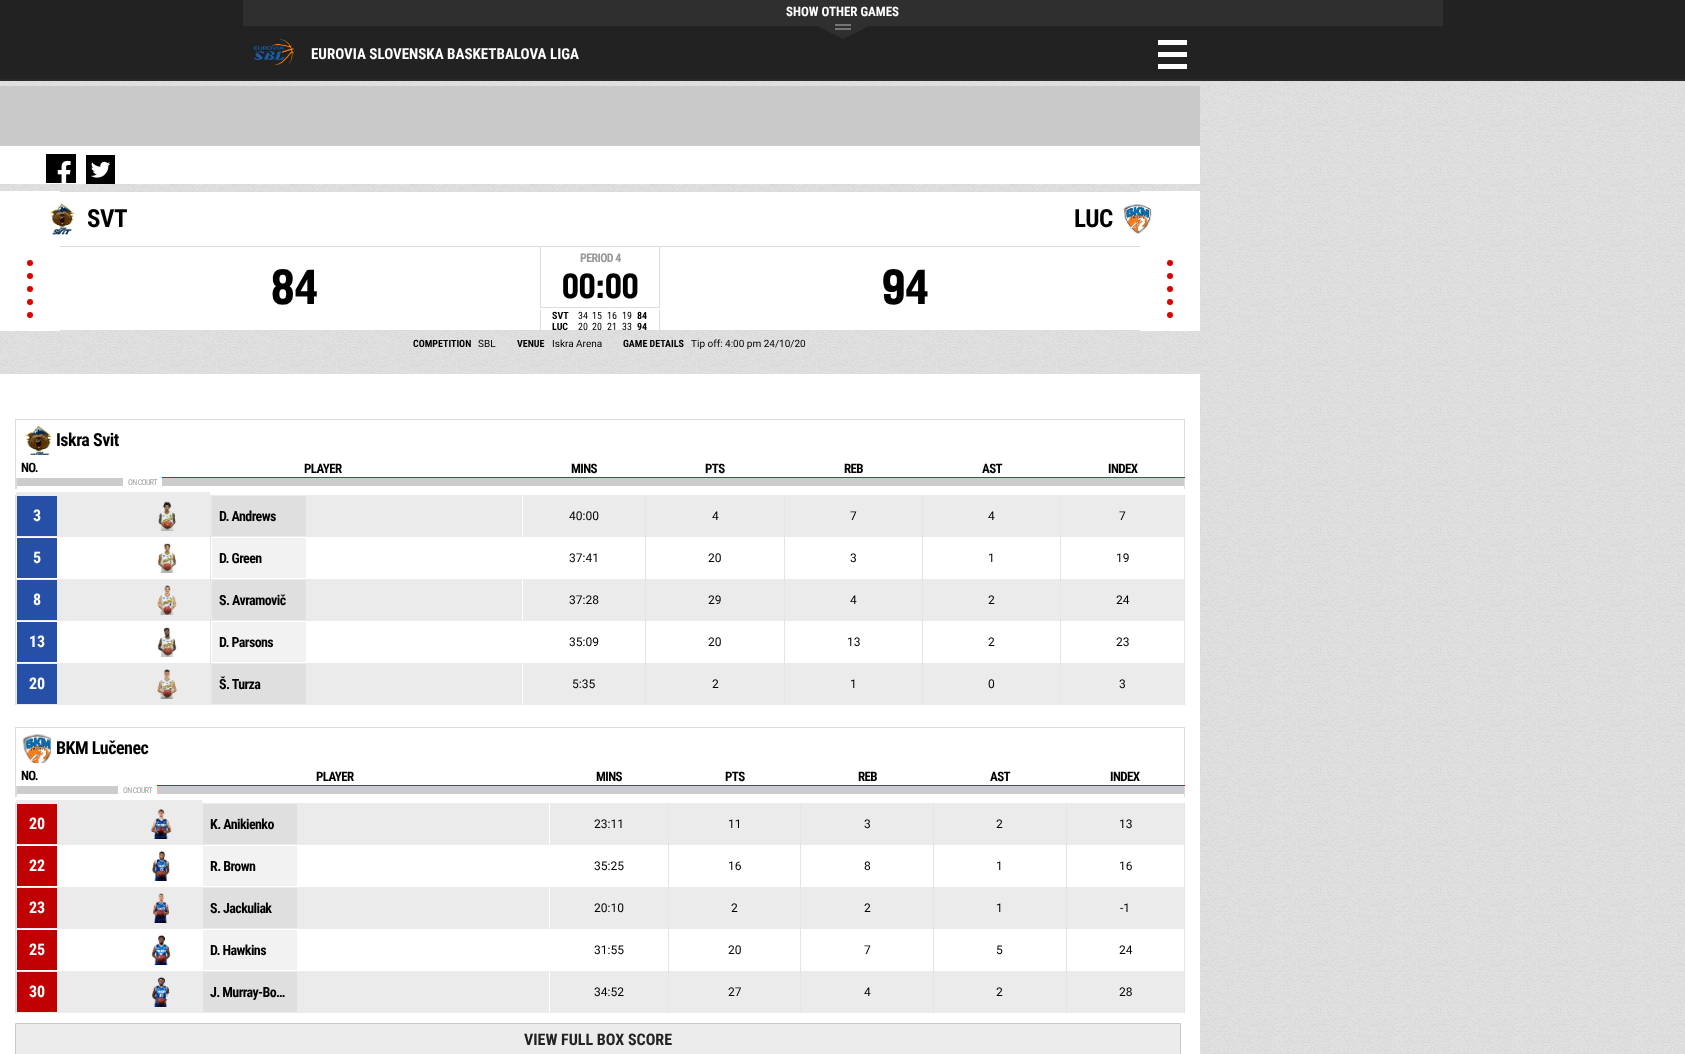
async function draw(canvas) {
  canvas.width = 1685;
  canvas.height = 1054;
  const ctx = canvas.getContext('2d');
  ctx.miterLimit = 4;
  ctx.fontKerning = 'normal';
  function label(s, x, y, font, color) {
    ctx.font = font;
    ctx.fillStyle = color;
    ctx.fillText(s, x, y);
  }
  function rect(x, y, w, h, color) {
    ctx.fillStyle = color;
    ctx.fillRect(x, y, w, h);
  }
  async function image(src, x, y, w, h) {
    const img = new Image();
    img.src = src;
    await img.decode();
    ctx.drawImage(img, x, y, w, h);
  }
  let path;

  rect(0, 0, 1685, 1054, '#fff');
  await image('assets/img1.png', 0, 81, 1685, 973);
  rect(0, 0, 1685, 79, '#222');
  rect(0, 79, 1685, 2, '#2a2a2a');
  rect(243, 0, 1200, 26, '#2f2f2f');
  label('SHOW OTHER GAMES', 786, 16, 'bold 13px Roboto Condensed', '#fff');
  ctx.fillStyle = '#2f2f2f';
  path = new Path2D('M803 19H883L843 39Z');
  ctx.fill(path);
  rect(835, 24, 16, 2, '#757575');
  rect(835, 28, 16, 2, '#757575');
  await image('assets/img2.png', 254, 39, 40, 27);
  label('EUROVIA SLOVENSKA BASKETBALOVA LIGA', 311, 59, 'bold 15px Roboto Condensed', '#fff');
  rect(0, 86, 1200, 60, '#c9c9c9');
  rect(1158, 40, 29, 5, '#fff');
  rect(1158, 52, 29, 5, '#fff');
  rect(1158, 64, 29, 5, '#fff');
  rect(0, 146, 1200, 38, '#fff');
  rect(46, 154, 30, 5, '#000');
  rect(74, 154, 2, 29, '#000');
  rect(46, 154, 2, 29, '#000');
  await image('assets/img3.png', 48, 159, 26, 24);
  rect(86, 155, 29, 2, '#000');
  rect(113, 155, 2, 29, '#000');
  rect(86, 181, 29, 3, '#000');
  rect(86, 155, 2, 29, '#000');
  await image('assets/img4.png', 88, 157, 25, 24);
  rect(0, 191, 1200, 140, '#fff');
  rect(60, 191, 1080, 1, '#dcdcdc');
  await image('assets/img5.png', 49, 203, 26, 32);
  ctx.letterSpacing = '-0.5px';
  label('SVT', 87, 227, 'bold 25px Roboto Condensed', '#000');
  ctx.fillStyle = '#df0000';
  ctx.beginPath();
  ctx.arc(30, 263, 3, 0, 2 * Math.PI);
  ctx.fill();
  ctx.beginPath();
  ctx.arc(30, 276, 3, 0, 2 * Math.PI);
  ctx.fill();
  ctx.beginPath();
  ctx.arc(30, 289, 3, 0, 2 * Math.PI);
  ctx.fill();
  ctx.beginPath();
  ctx.arc(30, 302, 3, 0, 2 * Math.PI);
  ctx.fill();
  ctx.beginPath();
  ctx.arc(30, 315, 3, 0, 2 * Math.PI);
  ctx.fill();
  ctx.letterSpacing = '0px';
  label('84', 271, 304, '48px "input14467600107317"', '#000');
  rect(60, 246, 1080, 1, '#dcdcdc');
  rect(60, 330, 1080, 1, '#dcdcdc');
  rect(659, 247, 1, 61, '#dcdcdc');
  rect(540, 247, 1, 19, '#dcdcdc');
  ctx.letterSpacing = '-0.6px';
  label('PERIOD 4', 580, 262, 'bold 12px Roboto Condensed', '#999');
  rect(540, 307, 120, 1, '#dcdcdc');
  rect(540, 265, 1, 43, '#dcdcdc');
  ctx.letterSpacing = '0px';
  label('00:00', 562, 298, '34px "input14467600107317"', '#000');
  rect(659, 310, 1, 21, '#dcdcdc');
  rect(540, 310, 1, 21, '#dcdcdc');
  label('SVT', 552, 319, 'bold 10px Roboto Condensed', '#000');
  label('34', 578, 319, '10px Roboto Condensed', '#000');
  label('15', 592, 319, '10px Roboto Condensed', '#000');
  label('16', 607, 319, '10px Roboto Condensed', '#000');
  label('19', 622, 319, '10px Roboto Condensed', '#000');
  label('84', 637, 319, 'bold 10px Roboto Condensed', '#000');
  label('LUC', 552, 330, 'bold 10px Roboto Condensed', '#000');
  label('20', 578, 330, '10px Roboto Condensed', '#000');
  label('20', 592, 330, '10px Roboto Condensed', '#000');
  label('21', 607, 330, '10px Roboto Condensed', '#000');
  label('33', 622, 330, '10px Roboto Condensed', '#000');
  label('94', 637, 330, 'bold 10px Roboto Condensed', '#000');
  ctx.letterSpacing = '-0.5px';
  label('LUC', 1074, 227, 'bold 25px Roboto Condensed', '#000');
  await image('assets/img6.png', 1123, 204, 29, 31);
  ctx.letterSpacing = '0px';
  label('94', 882, 304, '48px "input14467600107317"', '#000');
  ctx.fillStyle = '#df0000';
  ctx.beginPath();
  ctx.arc(1170, 263, 3, 0, 2 * Math.PI);
  ctx.fill();
  ctx.beginPath();
  ctx.arc(1170, 276, 3, 0, 2 * Math.PI);
  ctx.fill();
  ctx.beginPath();
  ctx.arc(1170, 289, 3, 0, 2 * Math.PI);
  ctx.fill();
  ctx.beginPath();
  ctx.arc(1170, 302, 3, 0, 2 * Math.PI);
  ctx.fill();
  ctx.beginPath();
  ctx.arc(1170, 315, 3, 0, 2 * Math.PI);
  ctx.fill();
  label('COMPETITION', 413, 347, 'bold 10px Roboto Condensed', '#000');
  label('SBL', 478, 347, '10px Roboto', '#000');
  label('VENUE', 517, 347, 'bold 10px Roboto Condensed', '#000');
  label('Iskra Arena', 552, 347, '10px Roboto', '#000');
  label('GAME DETAILS', 623, 347, 'bold 10px Roboto Condensed', '#000');
  label('Tip off: 4:00 pm 24/10/20', 691, 347, '10px Roboto', '#000');
  rect(0, 374, 1200, 680, '#fff');
  rect(15, 419, 1170, 1, '#dcdcdc');
  rect(1184, 419, 1, 70, '#dcdcdc');
  rect(15, 419, 1, 286, '#dcdcdc');
  await image('assets/img7.png', 24, 425, 27, 30);
  ctx.letterSpacing = '-0.5px';
  label('Iskra Svit', 56, 446, 'bold 18px Roboto Condensed', '#000');
  ctx.letterSpacing = '-0.6px';
  label('NO.', 21, 472, 'bold 13px Roboto Condensed', '#000');
  label('PLAYER', 304, 473, 'bold 13px Roboto Condensed', '#000');
  rect(162, 477, 1023, 1, '#f00');
  label('MINS', 571, 473, 'bold 13px Roboto Condensed', '#000');
  label('PTS', 705, 473, 'bold 13px Roboto Condensed', '#000');
  label('REB', 844, 473, 'bold 13px Roboto Condensed', '#000');
  label('AST', 982, 473, 'bold 13px Roboto Condensed', '#000');
  label('INDEX', 1108, 473, 'bold 13px Roboto Condensed', '#000');
  rect(16, 478, 107, 11, '#ccc');
  ctx.fillStyle = '#fff';
  path = new Path2D('M124 492H16L17 486H124Z');
  ctx.fill(path);
  ctx.fillStyle = '#dcdcdc';
  path = new Path2D('M16 492V478H17V486Z');
  ctx.fill(path);
  rect(15, 489, 2, 6, '#fff');
  rect(162, 478, 1022, 8, '#ccc');
  rect(210, 492, 1, 213, '#e5e5e5');
  rect(645, 492, 1, 213, '#e5e5e5');
  rect(784, 492, 1, 213, '#e5e5e5');
  rect(922, 492, 1, 213, '#e5e5e5');
  rect(1060, 492, 1, 213, '#e5e5e5');
  rect(1184, 492, 1, 213, '#e5e5e5');
  rect(210, 492, 975, 3, '#fff');
  label('ON COURT', 128, 485, '8px Roboto Condensed', '#a0a0a0');
  rect(16, 492, 194, 45, '#ebebeb');
  await image('assets/img8.png', 158, 501, 18, 30);
  rect(17, 496, 40, 40, '#264fa7');
  ctx.letterSpacing = '0px';
  label('3', 33, 521, 'bold 16px Roboto Condensed', '#fff');
  rect(211, 495, 311, 42, '#ebebeb');
  rect(212, 496, 94, 40, '#dfdfdf');
  ctx.letterSpacing = '-0.6px';
  label('D. Andrews', 219, 521, 'bold 14px Roboto Condensed', '#000');
  rect(523, 495, 122, 42, '#ebebeb');
  ctx.letterSpacing = '0px';
  label('40:00', 569, 520, '12px Roboto', '#000');
  rect(646, 495, 138, 42, '#ebebeb');
  label('4', 712, 520, '12px Roboto', '#000');
  rect(785, 495, 137, 42, '#ebebeb');
  label('7', 850, 520, '12px Roboto', '#000');
  rect(923, 495, 137, 42, '#ebebeb');
  label('4', 988, 520, '12px Roboto', '#000');
  rect(1061, 495, 123, 42, '#ebebeb');
  label('7', 1119, 520, '12px Roboto', '#000');
  rect(17, 538, 40, 40, '#264fa7');
  label('5', 33, 563, 'bold 16px Roboto Condensed', '#fff');
  await image('assets/img9.png', 157, 543, 20, 30);
  rect(212, 538, 94, 40, '#f2f2f2');
  ctx.letterSpacing = '-0.6px';
  label('D. Green', 219, 563, 'bold 14px Roboto Condensed', '#000');
  ctx.letterSpacing = '0px';
  label('37:41', 569, 562, '12px Roboto', '#000');
  label('20', 708, 562, '12px Roboto', '#000');
  label('3', 850, 562, '12px Roboto', '#000');
  label('1', 988, 562, '12px Roboto', '#000');
  label('19', 1116, 562, '12px Roboto', '#000');
  rect(16, 579, 194, 42, '#ebebeb');
  await image('assets/img10.png', 157, 585, 20, 30);
  rect(17, 580, 40, 40, '#264fa7');
  label('8', 33, 605, 'bold 16px Roboto Condensed', '#fff');
  rect(211, 579, 311, 42, '#ebebeb');
  rect(212, 580, 94, 40, '#dfdfdf');
  ctx.letterSpacing = '-0.6px';
  label('S. Avramovič', 219, 605, 'bold 14px Roboto Condensed', '#000');
  rect(523, 579, 122, 42, '#ebebeb');
  ctx.letterSpacing = '0px';
  label('37:28', 569, 604, '12px Roboto', '#000');
  rect(646, 579, 138, 42, '#ebebeb');
  label('29', 708, 604, '12px Roboto', '#000');
  rect(785, 579, 137, 42, '#ebebeb');
  label('4', 850, 604, '12px Roboto', '#000');
  rect(923, 579, 137, 42, '#ebebeb');
  label('2', 988, 604, '12px Roboto', '#000');
  rect(1061, 579, 123, 42, '#ebebeb');
  label('24', 1116, 604, '12px Roboto', '#000');
  rect(17, 622, 40, 40, '#264fa7');
  label('13', 29, 647, 'bold 16px Roboto Condensed', '#fff');
  await image('assets/img11.png', 157, 627, 20, 30);
  rect(212, 622, 94, 40, '#f2f2f2');
  ctx.letterSpacing = '-0.6px';
  label('D. Parsons', 219, 647, 'bold 14px Roboto Condensed', '#000');
  ctx.letterSpacing = '0px';
  label('35:09', 569, 646, '12px Roboto', '#000');
  label('20', 708, 646, '12px Roboto', '#000');
  label('13', 847, 646, '12px Roboto', '#000');
  label('2', 988, 646, '12px Roboto', '#000');
  label('23', 1116, 646, '12px Roboto', '#000');
  rect(16, 663, 194, 42, '#ebebeb');
  await image('assets/img12.png', 157, 669, 20, 30);
  rect(211, 663, 311, 42, '#ebebeb');
  rect(212, 664, 94, 40, '#dfdfdf');
  ctx.letterSpacing = '-0.6px';
  label('Š. Turza', 219, 689, 'bold 14px Roboto Condensed', '#000');
  rect(17, 664, 40, 40, '#264fa7');
  ctx.letterSpacing = '0px';
  label('20', 29, 689, 'bold 16px Roboto Condensed', '#fff');
  rect(523, 663, 122, 42, '#ebebeb');
  label('5:35', 572, 688, '12px Roboto', '#000');
  rect(646, 663, 138, 42, '#ebebeb');
  label('2', 712, 688, '12px Roboto', '#000');
  rect(785, 663, 137, 42, '#ebebeb');
  label('1', 850, 688, '12px Roboto', '#000');
  rect(923, 663, 137, 42, '#ebebeb');
  label('0', 988, 688, '12px Roboto', '#000');
  rect(1061, 663, 123, 42, '#ebebeb');
  label('3', 1119, 688, '12px Roboto', '#000');
  rect(15, 727, 1170, 1, '#dcdcdc');
  rect(1184, 727, 1, 70, '#dcdcdc');
  rect(15, 727, 1, 286, '#dcdcdc');
  await image('assets/img13.png', 22, 734, 29, 29);
  ctx.letterSpacing = '-0.5px';
  label('BKM Lučenec', 56, 754, 'bold 18px Roboto Condensed', '#000');
  ctx.letterSpacing = '-0.6px';
  label('NO.', 21, 780, 'bold 13px Roboto Condensed', '#000');
  rect(157, 785, 1028, 1, '#f00');
  label('PLAYER', 316, 781, 'bold 13px Roboto Condensed', '#000');
  label('MINS', 596, 781, 'bold 13px Roboto Condensed', '#000');
  label('PTS', 725, 781, 'bold 13px Roboto Condensed', '#000');
  label('REB', 858, 781, 'bold 13px Roboto Condensed', '#000');
  label('AST', 990, 781, 'bold 13px Roboto Condensed', '#000');
  label('INDEX', 1110, 781, 'bold 13px Roboto Condensed', '#000');
  rect(16, 786, 102, 11, '#ccc');
  ctx.fillStyle = '#fff';
  path = new Path2D('M119 800H16L17 794H119Z');
  ctx.fill(path);
  ctx.fillStyle = '#dcdcdc';
  path = new Path2D('M16 800V786H17V794Z');
  ctx.fill(path);
  rect(15, 797, 2, 6, '#fff');
  rect(157, 786, 1027, 8, '#ccc');
  rect(668, 800, 1, 213, '#e5e5e5');
  rect(800, 800, 1, 213, '#e5e5e5');
  rect(933, 800, 1, 213, '#e5e5e5');
  rect(1066, 800, 1, 213, '#e5e5e5');
  rect(1184, 800, 1, 213, '#e5e5e5');
  rect(668, 800, 517, 3, '#fff');
  label('ON COURT', 123, 793, '8px Roboto Condensed', '#a0a0a0');
  rect(16, 800, 186, 45, '#ebebeb');
  await image('assets/img14.png', 150, 809, 22, 30);
  rect(17, 804, 40, 40, '#c10003');
  ctx.letterSpacing = '0px';
  label('20', 29, 829, 'bold 16px Roboto Condensed', '#fff');
  rect(202, 803, 347, 42, '#ebebeb');
  rect(203, 804, 94, 40, '#dfdfdf');
  ctx.letterSpacing = '-0.6px';
  label('K. Anikienko', 210, 829, 'bold 14px Roboto Condensed', '#000');
  rect(550, 803, 118, 42, '#ebebeb');
  ctx.letterSpacing = '0px';
  label('23:11', 594, 828, '12px Roboto', '#000');
  rect(669, 803, 131, 42, '#ebebeb');
  label('11', 728, 828, '12px Roboto', '#000');
  rect(801, 803, 132, 42, '#ebebeb');
  label('3', 864, 828, '12px Roboto', '#000');
  rect(934, 803, 132, 42, '#ebebeb');
  label('2', 996, 828, '12px Roboto', '#000');
  rect(1067, 803, 117, 42, '#ebebeb');
  label('13', 1119, 828, '12px Roboto', '#000');
  rect(17, 846, 40, 40, '#c10003');
  label('22', 29, 871, 'bold 16px Roboto Condensed', '#fff');
  await image('assets/img15.png', 152, 851, 18, 30);
  rect(203, 846, 94, 40, '#f2f2f2');
  ctx.letterSpacing = '-0.6px';
  label('R. Brown', 210, 871, 'bold 14px Roboto Condensed', '#000');
  ctx.letterSpacing = '0px';
  label('35:25', 594, 870, '12px Roboto', '#000');
  label('16', 728, 870, '12px Roboto', '#000');
  label('8', 864, 870, '12px Roboto', '#000');
  label('1', 996, 870, '12px Roboto', '#000');
  label('16', 1119, 870, '12px Roboto', '#000');
  rect(16, 887, 533, 42, '#ebebeb');
  rect(17, 888, 40, 40, '#c10003');
  label('23', 29, 913, 'bold 16px Roboto Condensed', '#fff');
  await image('assets/img16.png', 152, 893, 18, 30);
  rect(203, 888, 94, 40, '#dfdfdf');
  ctx.letterSpacing = '-0.6px';
  label('S. Jackuliak', 210, 913, 'bold 14px Roboto Condensed', '#000');
  rect(550, 887, 118, 42, '#ebebeb');
  ctx.letterSpacing = '0px';
  label('20:10', 594, 912, '12px Roboto', '#000');
  rect(669, 887, 131, 42, '#ebebeb');
  label('2', 731, 912, '12px Roboto', '#000');
  rect(801, 887, 132, 42, '#ebebeb');
  label('2', 864, 912, '12px Roboto', '#000');
  rect(934, 887, 132, 42, '#ebebeb');
  label('1', 996, 912, '12px Roboto', '#000');
  rect(1067, 887, 117, 42, '#ebebeb');
  label('-1', 1120, 912, '12px Roboto', '#000');
  rect(17, 930, 40, 40, '#c10003');
  label('25', 29, 955, 'bold 16px Roboto Condensed', '#fff');
  await image('assets/img17.png', 151, 935, 20, 30);
  rect(203, 930, 94, 40, '#f2f2f2');
  ctx.letterSpacing = '-0.6px';
  label('D. Hawkins', 210, 955, 'bold 14px Roboto Condensed', '#000');
  ctx.letterSpacing = '0px';
  label('31:55', 594, 954, '12px Roboto', '#000');
  label('20', 728, 954, '12px Roboto', '#000');
  label('7', 864, 954, '12px Roboto', '#000');
  label('5', 996, 954, '12px Roboto', '#000');
  label('24', 1119, 954, '12px Roboto', '#000');
  rect(16, 971, 533, 42, '#ebebeb');
  rect(17, 972, 40, 40, '#c10003');
  label('30', 29, 997, 'bold 16px Roboto Condensed', '#fff');
  await image('assets/img18.png', 151, 977, 19, 30);
  rect(203, 972, 94, 40, '#dfdfdf');
  ctx.letterSpacing = '-0.6px';
  label('J. Murray-Bo…', 210, 997, 'bold 14px Roboto Condensed', '#000');
  rect(550, 971, 118, 42, '#ebebeb');
  ctx.letterSpacing = '0px';
  label('34:52', 594, 996, '12px Roboto', '#000');
  rect(669, 971, 131, 42, '#ebebeb');
  label('27', 728, 996, '12px Roboto', '#000');
  rect(801, 971, 132, 42, '#ebebeb');
  label('4', 864, 996, '12px Roboto', '#000');
  rect(934, 971, 132, 42, '#ebebeb');
  label('2', 996, 996, '12px Roboto', '#000');
  rect(1067, 971, 117, 42, '#ebebeb');
  label('28', 1119, 996, '12px Roboto', '#000');
  ctx.fillStyle = '#ececec';
  ctx.beginPath();
  ctx.rect(15.5, 1023.5, 1165, 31);
  ctx.fill();
  ctx.strokeStyle = '#c9c9c9';
  ctx.stroke();
  label('VIEW FULL BOX SCORE', 524, 1045, 'bold 16px Roboto Condensed', '#222');
}

draw(document.querySelector('canvas'));
